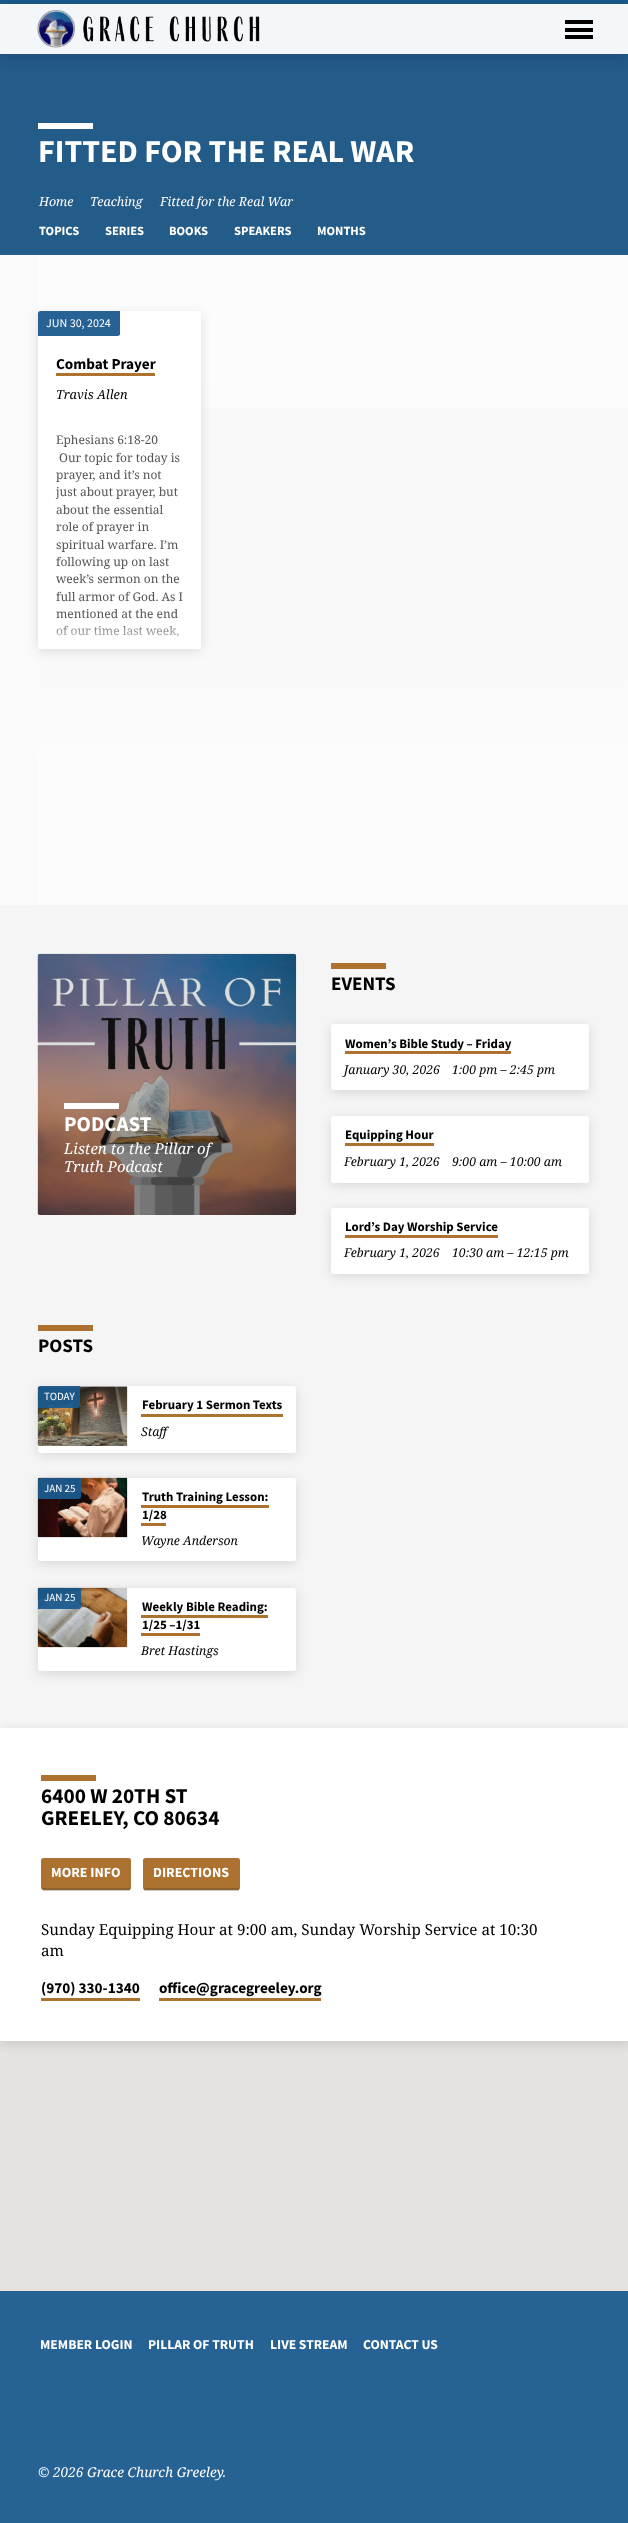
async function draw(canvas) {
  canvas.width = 628;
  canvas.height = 2523;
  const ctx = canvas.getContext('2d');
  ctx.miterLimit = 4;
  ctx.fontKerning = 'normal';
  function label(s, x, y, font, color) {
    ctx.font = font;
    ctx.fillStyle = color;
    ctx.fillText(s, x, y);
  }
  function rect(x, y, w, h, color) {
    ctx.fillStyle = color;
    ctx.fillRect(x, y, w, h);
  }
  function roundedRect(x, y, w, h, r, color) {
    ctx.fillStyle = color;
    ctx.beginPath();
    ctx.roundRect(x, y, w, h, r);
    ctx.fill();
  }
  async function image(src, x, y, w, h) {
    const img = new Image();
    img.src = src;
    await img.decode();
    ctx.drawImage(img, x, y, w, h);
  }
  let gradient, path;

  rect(0, 0, 628, 2523, '#fff');
  rect(0, 0, 628, 4, '#1b5a8d');
  rect(0, 4, 628, 50, '#f4f7f9');
  rect(0, 54, 628, 201, '#235b89');
  ctx.save();
  path = new Path2D('M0 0H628V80H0ZM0 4H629V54H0Z');
  ctx.clip(path, 'evenodd');
  ctx.fillStyle = '#00000024';
  ctx.filter = 'blur(7.5px)';
  ctx.beginPath();
  ctx.rect(0, 6, 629, 50);
  ctx.fill();
  ctx.filter = 'none';
  ctx.restore();
  await image('assets/img1.png', 37, 10, 223, 38);
  rect(565, 20, 28, 4, '#000');
  rect(565, 28, 28, 4, '#000');
  rect(565, 35, 28, 4, '#000');
  rect(38, 123, 55, 6, '#fff');
  label('FITTED FOR THE REAL WAR', 38, 162, 'bold 32px Source Sans Pro', '#fff');
  label('Home', 39, 206, 'italic 12.5px Noto Serif', '#fff');
  label('Teaching', 90, 206, 'italic 12.5px Noto Serif', '#fff');
  label('Fitted for the Real War', 160, 206, 'italic 12.5px Noto Serif', '#fff');
  label('TOPICS', 39, 235, 'bold 12.5px Source Sans Pro', '#fff');
  label('SERIES', 105, 235, 'bold 12.5px Source Sans Pro', '#fff');
  label('BOOKS', 169, 235, 'bold 12.5px Source Sans Pro', '#fff');
  label('SPEAKERS', 234, 235, 'bold 12.5px Source Sans Pro', '#fff');
  label('MONTHS', 317, 235, 'bold 12.5px Source Sans Pro', '#fff');
  rect(0, 255, 38, 650, '#fafafa');
  gradient = ctx.createLinearGradient(352, 905, 352, 255);
  gradient.addColorStop(0.19, '#fcfcfc');
  gradient.addColorStop(0.38, '#f9f9f9');
  ctx.fillStyle = gradient;
  ctx.fillRect(38, 379, 590, 526);
  gradient = ctx.createLinearGradient(352, 255, 352, 905);
  gradient.addColorStop(0.19, '#fcfcfc');
  gradient.addColorStop(0.38, '#fcfcfc00');
  ctx.fillStyle = gradient;
  ctx.fillRect(38, 255, 590, 152);
  ctx.fillStyle = '#0000001f';
  ctx.filter = 'blur(6px)';
  ctx.beginPath();
  ctx.roundRect(38, 314, 163, 337, 2.5);
  ctx.fill();
  ctx.filter = 'none';
  roundedRect(38, 311, 163, 338, 2.5, '#fff');
  ctx.fillStyle = '#266293';
  ctx.beginPath();
  ctx.roundRect(38, 311, 82, 25, [2.5, 0, 2.5, 0]);
  ctx.fill();
  label('JUN 30, 2024', 46, 327, '12px Source Sans Pro', '#fff');
  label('Combat Prayer', 56, 369, 'bold 15.2px Source Sans Pro', '#000');
  rect(56, 373, 99, 3, '#ad722f');
  label('Travis Allen', 56, 399, 'italic 12.75px Noto Serif', '#000');
  label('Ephesians 6:18-20', 56, 444, '12px Noto Serif', '#555');
  label('Our topic for today is', 59, 462, '12px Noto Serif', '#555');
  label('prayer, and it’s not', 56, 479, '12px Noto Serif', '#555');
  label('just about prayer, but', 56, 496, '12px Noto Serif', '#555');
  label('about the essential', 56, 514, '12px Noto Serif', '#555');
  label('role of prayer in', 56, 531, '12px Noto Serif', '#555');
  label('spiritual warfare. I’m', 56, 549, '12px Noto Serif', '#555');
  label('following up on last', 56, 566, '12px Noto Serif', '#555');
  label('week’s sermon on the', 56, 583, '12px Noto Serif', '#555');
  label('full armor of God. As I', 56, 601, '12px Noto Serif', '#555');
  label('mentioned at the end', 56, 618, '12px Noto Serif', '#555');
  label('of our time last week,', 56, 635, '12px Noto Serif', '#555');
  gradient = ctx.createLinearGradient(119, 618, 119, 649);
  gradient.addColorStop(0, '#ffffff00');
  gradient.addColorStop(1, '#ffffffe6');
  ctx.fillStyle = gradient;
  ctx.beginPath();
  ctx.roundRect(38, 618, 163, 31, [0, 0, 2.5, 2.5]);
  ctx.fill();
  rect(0, 905, 628, 823, '#f5f5f5');
  await image('assets/img2.png', 37, 953, 260, 262);
  roundedRect(38, 954, 258, 261, 2.5, '#0000001a');
  gradient = ctx.createLinearGradient(167, 954, 167, 1215);
  gradient.addColorStop(0, '#ffffff00');
  gradient.addColorStop(0.36, '#00000000');
  gradient.addColorStop(0.76, '#00000059');
  gradient.addColorStop(1, '#00000059');
  ctx.fillStyle = gradient;
  ctx.beginPath();
  ctx.roundRect(38, 954, 258, 261, 2.5);
  ctx.fill();
  rect(64, 1103, 55, 6, '#fff');
  label('PODCAST', 64, 1131, 'bold 21px Source Sans Pro', '#fff');
  label('Listen to the Pillar of', 64, 1154, 'italic 15px Noto Serif', '#fff');
  label('Truth Podcast', 64, 1172, 'italic 15px Noto Serif', '#fff');
  rect(331, 963, 55, 6, '#ad722f');
  label('EVENTS', 331, 990, 'bold 19px Source Sans Pro', '#000');
  ctx.fillStyle = '#0000001f';
  ctx.filter = 'blur(6px)';
  ctx.beginPath();
  ctx.roundRect(331, 1026, 258, 67, 2.5);
  ctx.fill();
  ctx.filter = 'none';
  roundedRect(331, 1024, 258, 66, 2.5, '#fff');
  label('Women’s Bible Study – Friday', 345, 1048, 'bold 12.9px Source Sans Pro', '#000');
  rect(345, 1051, 166, 3, '#ad722f');
  label('January 30, 2026', 344, 1074, 'italic 12.25px Noto Serif', '#000');
  label('1:00 pm – 2:45 pm', 452, 1074, 'italic 12.25px Noto Serif', '#000');
  ctx.fillStyle = '#0000001f';
  ctx.filter = 'blur(6px)';
  ctx.beginPath();
  ctx.roundRect(331, 1119, 258, 66, 2.5);
  ctx.fill();
  ctx.filter = 'none';
  roundedRect(331, 1116, 258, 67, 2.5, '#fff');
  label('Equipping Hour', 345, 1139, 'bold 12.9px Source Sans Pro', '#000');
  rect(345, 1143, 89, 3, '#ad722f');
  label('February 1, 2026', 344, 1166, 'italic 12.25px Noto Serif', '#000');
  label('9:00 am – 10:00 am', 452, 1166, 'italic 12.25px Noto Serif', '#000');
  ctx.fillStyle = '#0000001f';
  ctx.filter = 'blur(6px)';
  ctx.beginPath();
  ctx.roundRect(331, 1210, 258, 66, 2.5);
  ctx.fill();
  ctx.filter = 'none';
  roundedRect(331, 1208, 258, 66, 2.5, '#fff');
  label('Lord’s Day Worship Service', 345, 1231, 'bold 12.9px Source Sans Pro', '#000');
  rect(345, 1235, 153, 3, '#ad722f');
  label('February 1, 2026', 344, 1257, 'italic 12.25px Noto Serif', '#000');
  label('10:30 am – 12:15 pm', 452, 1257, 'italic 12.25px Noto Serif', '#000');
  rect(38, 1325, 55, 6, '#ad722f');
  label('POSTS', 38, 1352, 'bold 19px Source Sans Pro', '#000');
  ctx.fillStyle = '#0000001f';
  ctx.filter = 'blur(6px)';
  ctx.beginPath();
  ctx.roundRect(38, 1389, 258, 66, 2.5);
  ctx.fill();
  ctx.filter = 'none';
  roundedRect(38, 1386, 258, 67, 2.5, '#fff');
  await image('assets/img3.png', 37, 1386, 91, 60);
  ctx.fillStyle = '#1b5a8df2';
  ctx.beginPath();
  ctx.roundRect(38, 1386, 42, 22, [2.5, 0, 2.5, 0]);
  ctx.fill();
  label('TODAY', 44, 1400, '11px Source Sans Pro', '#fff');
  label('February 1 Sermon Texts', 142, 1409, 'bold 12.9px Source Sans Pro', '#000');
  rect(141, 1414, 142, 3, '#ad722f');
  label('Staff', 141, 1436, 'italic 12.25px Noto Serif', '#000');
  ctx.fillStyle = '#0000001f';
  ctx.filter = 'blur(6px)';
  ctx.beginPath();
  ctx.roundRect(38, 1480, 258, 84, 2.5);
  ctx.fill();
  ctx.filter = 'none';
  roundedRect(38, 1478, 258, 83, 2.5, '#fff');
  await image('assets/img4.png', 37, 1477, 91, 61);
  ctx.fillStyle = '#1b5a8df2';
  ctx.beginPath();
  ctx.roundRect(38, 1478, 43, 21, [2.5, 0, 2.5, 0]);
  ctx.fill();
  label('JAN 25', 44, 1492, '11px Source Sans Pro', '#fff');
  label('Truth Training Lesson:', 142, 1501, 'bold 12.9px Source Sans Pro', '#000');
  rect(141, 1505, 128, 3, '#ad722f');
  label('1/28', 142, 1519, 'bold 12.9px Source Sans Pro', '#000');
  rect(141, 1523, 25, 3, '#ad722f');
  label('Wayne Anderson', 141, 1545, 'italic 12.25px Noto Serif', '#000');
  ctx.fillStyle = '#0000001f';
  ctx.filter = 'blur(6px)';
  ctx.beginPath();
  ctx.roundRect(38, 1590, 258, 84, 2.5);
  ctx.fill();
  ctx.filter = 'none';
  roundedRect(38, 1588, 258, 83, 2.5, '#fff');
  await image('assets/img5.png', 37, 1587, 91, 61);
  ctx.fillStyle = '#1b5a8df2';
  ctx.beginPath();
  ctx.roundRect(38, 1588, 43, 21, [2.5, 0, 2.5, 0]);
  ctx.fill();
  label('JAN 25', 44, 1601, '11px Source Sans Pro', '#fff');
  label('Weekly Bible Reading:', 142, 1611, 'bold 12.9px Source Sans Pro', '#000');
  rect(141, 1615, 127, 3, '#ad722f');
  label('1/25 –1/31', 142, 1629, 'bold 12.9px Source Sans Pro', '#000');
  rect(141, 1633, 59, 3, '#ad722f');
  label('Bret Hastings', 141, 1655, 'italic 12.25px Noto Serif', '#000');
  rect(0, 2041, 628, 250, '#e5e3df');
  ctx.save();
  path = new Path2D('M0 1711H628V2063H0ZM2.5 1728H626.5C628 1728 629 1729 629 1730.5V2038.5C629 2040 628 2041 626.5 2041H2.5C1 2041 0 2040 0 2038.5V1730.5C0 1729 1 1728 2.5 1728Z');
  ctx.clip(path, 'evenodd');
  ctx.fillStyle = '#0000001f';
  ctx.filter = 'blur(6px)';
  ctx.beginPath();
  ctx.roundRect(0, 1730, 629, 314, 2.5);
  ctx.fill();
  ctx.filter = 'none';
  ctx.restore();
  rect(41, 1775, 55, 6, '#ad722f');
  label('6400 W 20TH ST', 41, 1803, 'bold 21.25px Source Sans Pro', '#000');
  label('GREELEY, CO 80634', 41, 1825, 'bold 21.25px Source Sans Pro', '#000');
  roundedRect(41, 1858, 90, 32, 2.5, '#ad722f');
  rect(43, 1888, 87, 3, '#32323240');
  label('MORE INFO', 51, 1877, 'bold 14px Source Sans Pro', '#fff');
  roundedRect(143, 1858, 97, 32, 2.5, '#ad722f');
  rect(144, 1888, 95, 3, '#32323240');
  label('DIRECTIONS', 153, 1877, 'bold 14px Source Sans Pro', '#fff');
  label('Sunday Equipping Hour at 9:00 am, Sunday Worship Service at 10:30', 41, 1935, '15.2px Noto Serif', '#000');
  label('am', 41, 1956, '15.2px Noto Serif', '#000');
  label('(970) 330-1340', 41, 1993, 'bold 15.2px Source Sans Pro', '#000');
  rect(41, 1998, 99, 3, '#ad722f');
  label('office@gracegreeley.org', 159, 1993, 'bold 15.2px Source Sans Pro', '#000');
  rect(159, 1998, 162, 3, '#ad722f');
  rect(0, 2291, 628, 232, '#266293');
  label('MEMBER LOGIN', 40, 2349, 'bold 13.6px Source Sans Pro', '#fff');
  label('PILLAR OF TRUTH', 148, 2349, 'bold 13.6px Source Sans Pro', '#fff');
  label('LIVE STREAM', 270, 2349, 'bold 13.6px Source Sans Pro', '#fff');
  label('CONTACT US', 363, 2349, 'bold 13.6px Source Sans Pro', '#fff');
  label('© 2026 Grace Church Greeley.', 38, 2477, 'italic 13.6px Noto Serif', '#fff');
}

draw(document.querySelector('canvas'));
